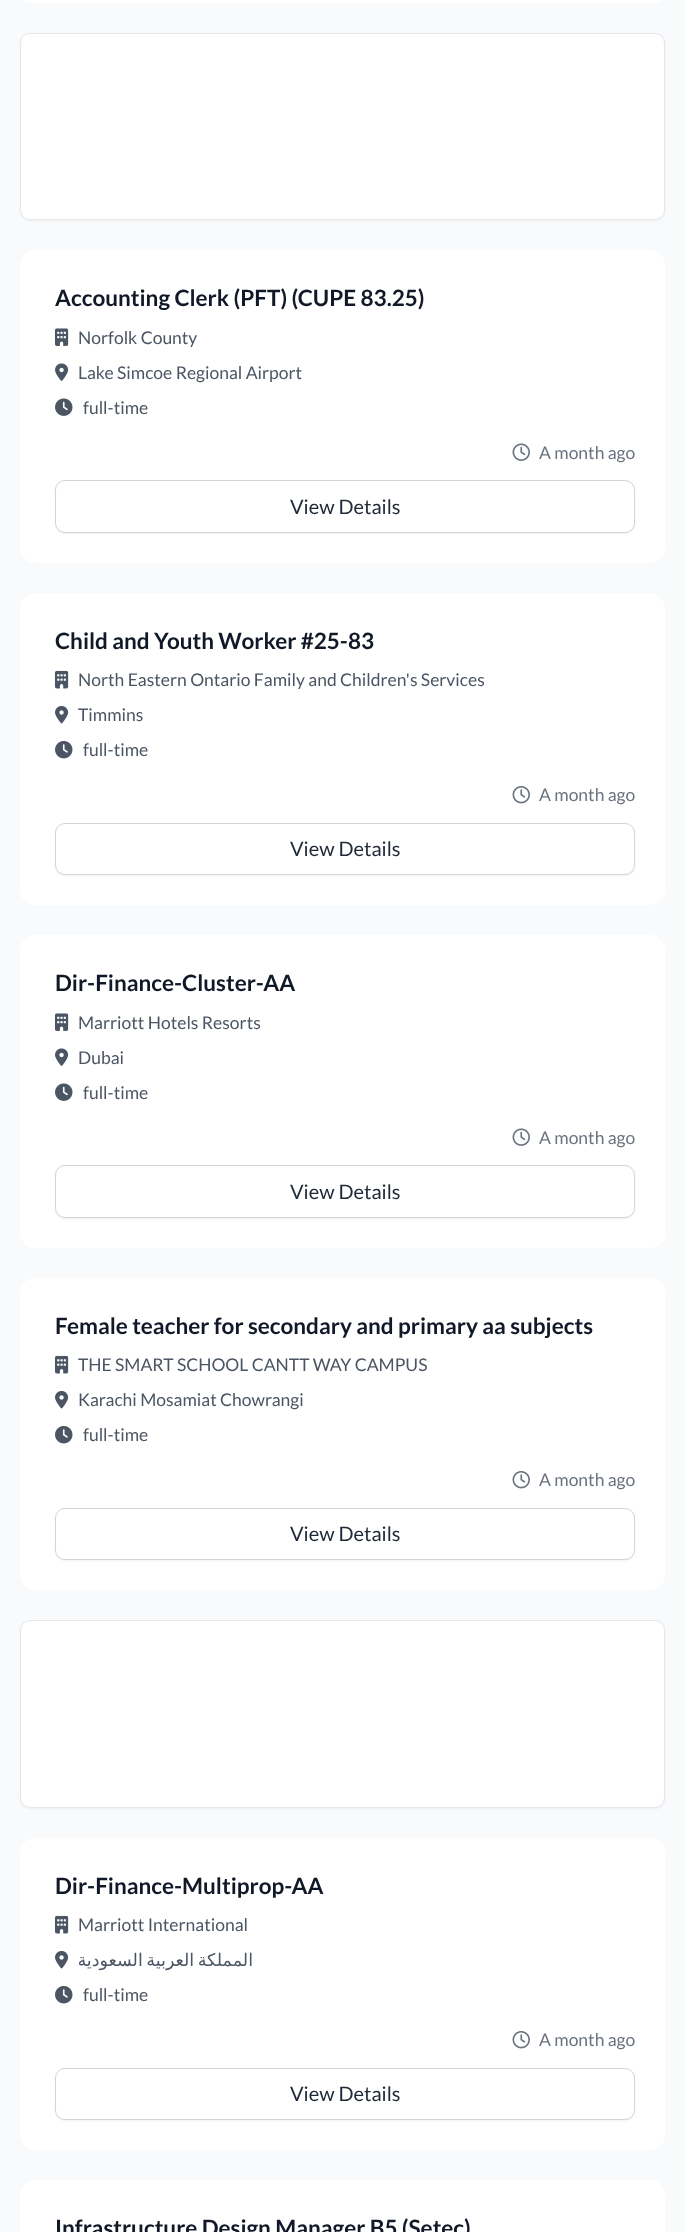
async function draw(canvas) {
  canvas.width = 685;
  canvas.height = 2232;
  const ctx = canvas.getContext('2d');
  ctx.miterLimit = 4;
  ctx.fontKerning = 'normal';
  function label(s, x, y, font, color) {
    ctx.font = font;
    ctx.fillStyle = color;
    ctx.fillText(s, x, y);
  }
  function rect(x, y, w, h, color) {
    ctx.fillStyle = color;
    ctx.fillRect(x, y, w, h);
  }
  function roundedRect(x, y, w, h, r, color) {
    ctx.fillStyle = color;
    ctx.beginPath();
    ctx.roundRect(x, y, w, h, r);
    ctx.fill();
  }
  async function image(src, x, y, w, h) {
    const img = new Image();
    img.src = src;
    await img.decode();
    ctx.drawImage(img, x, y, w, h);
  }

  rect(0, 0, 685, 2232, '#f9fafb');
  roundedRect(20, -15, 645, 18, 15, '#fff');
  ctx.fillStyle = '#0000000d';
  ctx.filter = 'blur(1px)';
  ctx.beginPath();
  ctx.roundRect(20, 34, 645, 187, 10);
  ctx.fill();
  ctx.filter = 'none';
  ctx.fillStyle = '#fff';
  ctx.beginPath();
  ctx.roundRect(20.5, 33.5, 644, 186, 9.5);
  ctx.fill();
  ctx.strokeStyle = '#e5e7eb';
  ctx.stroke();
  roundedRect(20, 250, 645, 313, 15, '#fff');
  label('Accounting Clerk (PFT) (CUPE 83.25)', 55, 306, 'bold 22.5px Lato', '#111827');
  await image('assets/img1.png', 55, 328, 14, 18);
  label('Norfolk County', 78, 344, '17.5px Lato', '#4b5563');
  await image('assets/img2.png', 55, 363, 14, 18);
  label('Lake Simcoe Regional Airport', 78, 379, '17.5px Lato', '#4b5563');
  await image('assets/img3.png', 55, 398, 18, 18);
  label('full-time', 83, 414, '17.5px Lato', '#4b5563');
  await image('assets/img4.png', 512, 443, 18, 18);
  label('A month ago', 539, 459, '17.5px Lato', '#6b7280');
  ctx.fillStyle = '#0000000d';
  ctx.filter = 'blur(1px)';
  ctx.beginPath();
  ctx.roundRect(55, 481, 580, 53, 10);
  ctx.fill();
  ctx.filter = 'none';
  roundedRect(55, 480, 580, 53, 10, '#fff');
  ctx.beginPath();
  ctx.roundRect(55.5, 480.5, 579, 52, 9.5);
  ctx.strokeStyle = '#1f293733';
  ctx.stroke();
  label('View Details', 290, 514, '20px Lato', '#1f2937');
  roundedRect(20, 593, 645, 312, 15, '#fff');
  label('Child and Youth Worker #25-83', 55, 649, 'bold 22.5px Lato', '#111827');
  await image('assets/img5.png', 55, 670, 14, 19);
  label('North Eastern Ontario Family and Children\'s Services', 78, 686, '17.5px Lato', '#4b5563');
  await image('assets/img6.png', 55, 705, 14, 19);
  label('Timmins', 78, 721, '17.5px Lato', '#4b5563');
  await image('assets/img7.png', 55, 740, 18, 19);
  label('full-time', 83, 756, '17.5px Lato', '#4b5563');
  await image('assets/img8.png', 512, 785, 18, 19);
  label('A month ago', 539, 801, '17.5px Lato', '#6b7280');
  ctx.fillStyle = '#0000000d';
  ctx.filter = 'blur(1px)';
  ctx.beginPath();
  ctx.roundRect(55, 824, 580, 52, 10);
  ctx.fill();
  ctx.filter = 'none';
  ctx.fillStyle = '#fff';
  ctx.beginPath();
  ctx.roundRect(55.5, 823.5, 579, 51, 9.5);
  ctx.fill();
  ctx.strokeStyle = '#d2d4d7';
  ctx.stroke();
  label('View Details', 290, 856, '20px Lato', '#1f2937');
  roundedRect(20, 935, 645, 313, 15, '#fff');
  label('Dir-Finance-Cluster-AA', 55, 991, 'bold 22.5px Lato', '#111827');
  await image('assets/img1.png', 55, 1013, 14, 18);
  label('Marriott Hotels Resorts', 78, 1029, '17.5px Lato', '#4b5563');
  await image('assets/img2.png', 55, 1048, 14, 18);
  label('Dubai', 78, 1064, '17.5px Lato', '#4b5563');
  await image('assets/img3.png', 55, 1083, 18, 18);
  label('full-time', 83, 1099, '17.5px Lato', '#4b5563');
  await image('assets/img4.png', 512, 1128, 18, 18);
  label('A month ago', 539, 1144, '17.5px Lato', '#6b7280');
  ctx.fillStyle = '#0000000d';
  ctx.filter = 'blur(1px)';
  ctx.beginPath();
  ctx.roundRect(55, 1166, 580, 53, 10);
  ctx.fill();
  ctx.filter = 'none';
  roundedRect(55, 1165, 580, 53, 10, '#fff');
  ctx.beginPath();
  ctx.roundRect(55.5, 1165.5, 579, 52, 9.5);
  ctx.strokeStyle = '#1f293733';
  ctx.stroke();
  label('View Details', 290, 1199, '20px Lato', '#1f2937');
  roundedRect(20, 1278, 645, 312, 15, '#fff');
  label('Female teacher for secondary and primary aa subjects', 55, 1334, 'bold 22.5px Lato', '#111827');
  await image('assets/img5.png', 55, 1355, 14, 19);
  label('THE SMART SCHOOL CANTT WAY CAMPUS', 78, 1371, '17.5px Lato', '#4b5563');
  await image('assets/img6.png', 55, 1390, 14, 19);
  label('Karachi Mosamiat Chowrangi', 78, 1406, '17.5px Lato', '#4b5563');
  await image('assets/img7.png', 55, 1425, 18, 19);
  label('full-time', 83, 1441, '17.5px Lato', '#4b5563');
  await image('assets/img8.png', 512, 1470, 18, 19);
  label('A month ago', 539, 1486, '17.5px Lato', '#6b7280');
  ctx.fillStyle = '#0000000d';
  ctx.filter = 'blur(1px)';
  ctx.beginPath();
  ctx.roundRect(55, 1509, 580, 52, 10);
  ctx.fill();
  ctx.filter = 'none';
  ctx.fillStyle = '#fff';
  ctx.beginPath();
  ctx.roundRect(55.5, 1508.5, 579, 51, 9.5);
  ctx.fill();
  ctx.strokeStyle = '#d2d4d7';
  ctx.stroke();
  label('View Details', 290, 1541, '20px Lato', '#1f2937');
  ctx.fillStyle = '#0000000d';
  ctx.filter = 'blur(1px)';
  ctx.beginPath();
  ctx.roundRect(20, 1621, 645, 188, 10);
  ctx.fill();
  ctx.filter = 'none';
  ctx.fillStyle = '#fff';
  ctx.beginPath();
  ctx.roundRect(20.5, 1620.5, 644, 187, 9.5);
  ctx.fill();
  ctx.strokeStyle = '#e5e7eb';
  ctx.stroke();
  roundedRect(20, 1838, 645, 312, 15, '#fff');
  label('Dir-Finance-Multiprop-AA', 55, 1894, 'bold 22.5px Lato', '#111827');
  await image('assets/img5.png', 55, 1915, 14, 19);
  label('Marriott International', 78, 1931, '17.5px Lato', '#4b5563');
  await image('assets/img6.png', 55, 1950, 14, 19);
  ctx.save();
  ctx.beginPath();
  ctx.rect(79, 1948, 175, 25);
  ctx.clip();
  ctx.wordSpacing = '-2px';
  ctx.direction = 'rtl';
  label('المملكة العربية السعودية', 253, 1966, '17.5px DejaVu Sans', '#4b5563');
  ctx.restore();
  await image('assets/img7.png', 55, 1985, 18, 19);
  label('full-time', 83, 2001, '17.5px Lato', '#4b5563');
  await image('assets/img8.png', 512, 2030, 18, 19);
  label('A month ago', 539, 2046, '17.5px Lato', '#6b7280');
  ctx.fillStyle = '#0000000d';
  ctx.filter = 'blur(1px)';
  ctx.beginPath();
  ctx.roundRect(55, 2069, 580, 52, 10);
  ctx.fill();
  ctx.filter = 'none';
  ctx.fillStyle = '#fff';
  ctx.beginPath();
  ctx.roundRect(55.5, 2068.5, 579, 51, 9.5);
  ctx.fill();
  ctx.strokeStyle = '#d2d4d7';
  ctx.stroke();
  label('View Details', 290, 2101, '20px Lato', '#1f2937');
  roundedRect(20, 2180, 645, 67, 15, '#fff');
  label('Infrastructure Design Manager B5 (Setec)', 55, 2236, 'bold 22.5px Lato', '#111827');
}

draw(document.querySelector('canvas'));
